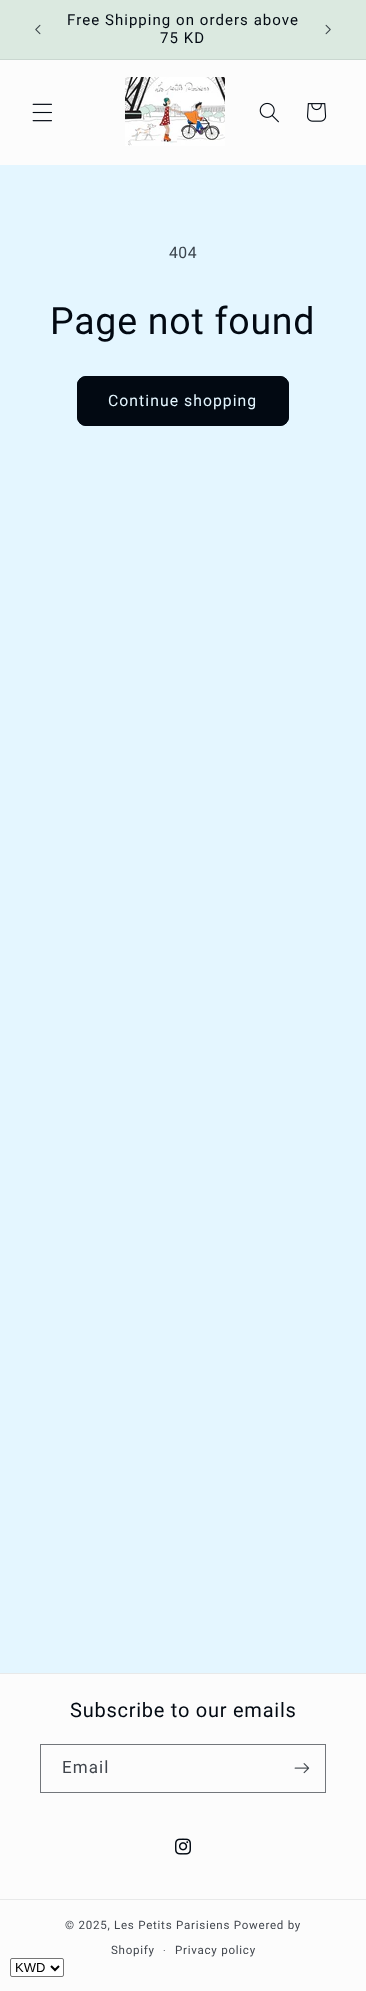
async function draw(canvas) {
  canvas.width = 366;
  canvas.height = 1991;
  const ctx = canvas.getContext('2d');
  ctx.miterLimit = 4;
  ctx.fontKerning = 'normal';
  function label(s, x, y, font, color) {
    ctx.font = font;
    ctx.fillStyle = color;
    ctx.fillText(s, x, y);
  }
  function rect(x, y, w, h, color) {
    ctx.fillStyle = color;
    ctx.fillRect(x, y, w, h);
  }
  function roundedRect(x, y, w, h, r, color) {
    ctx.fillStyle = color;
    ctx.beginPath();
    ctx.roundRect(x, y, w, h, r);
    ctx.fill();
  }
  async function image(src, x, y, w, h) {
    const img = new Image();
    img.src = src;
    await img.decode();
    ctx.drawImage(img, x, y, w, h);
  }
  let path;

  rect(0, 0, 366, 1991, '#e4f6ff');
  rect(0, 0, 366, 59, '#dbe9e0');
  rect(0, 59, 366, 1, '#cad7d0');
  await image('assets/img1.png', 35, 24, 6, 11);
  ctx.letterSpacing = '1.05px';
  label('Free Shipping on orders above', 67, 25, '15px Roboto', '#020912');
  label('75 KD', 160, 43, '15px Roboto', '#020912');
  await image('assets/img2.png', 325, 24, 6, 11);
  rect(0, 60, 366, 105, '#fcfcfc');
  await image('assets/img3.png', 32, 103, 20, 19);
  await image('assets/img4.png', 125, 77, 100, 69);
  await image('assets/img5.png', 259, 102, 20, 21);
  await image('assets/img6.png', 307, 103, 20, 19);
  ctx.letterSpacing = '0.5px';
  label('404', 169, 258, '15.75px Roboto', '#3b444d');
  ctx.letterSpacing = '0.75px';
  label('Page not found', 50, 334, '37.5px Roboto', '#020912');
  roundedRect(77, 376, 212, 50, 9, '#020912');
  ctx.beginPath();
  ctx.roundRect(77.5, 376.5, 211, 49, 8.5);
  ctx.strokeStyle = '#020912';
  ctx.stroke();
  ctx.letterSpacing = '1.05px';
  label('Continue shopping', 108, 406, '15.75px Roboto', '#e4f6ff');
  rect(0, 1674, 366, 317, '#fcfcfc');
  rect(0, 1673, 366, 1, '#e8e9e9');
  ctx.letterSpacing = '0.75px';
  label('Subscribe to our emails', 70, 1717, '20px Roboto', '#020912');
  ctx.strokeStyle = '#72767b';
  ctx.strokeRect(40.5, 1744.5, 285, 48);
  ctx.letterSpacing = '1.05px';
  label('Email', 62, 1773, '17px Roboto', '#41464d');
  await image('assets/img7.png', 294, 1763, 16, 11);
  await image('assets/img8.png', 175, 1838, 16, 17);
  rect(0, 1899, 366, 1, '#e8e9e9');
  ctx.letterSpacing = '0.75px';
  label('© 2025, Les Petits Parisiens Powered by', 65, 1929, '11.55px Roboto', '#41464d');
  label('Shopify', 111, 1954, '11.55px Roboto', '#41464d');
  label('·', 163, 1954, '10px Roboto', '#41464d');
  label('Privacy policy', 175, 1954, '11.55px Roboto', '#41464d');
  ctx.fillStyle = '#fff';
  ctx.beginPath();
  ctx.roundRect(10.5, 1958.5, 53, 18, 1.5);
  ctx.fill();
  ctx.strokeStyle = '#767676';
  ctx.stroke();
  path = new Path2D('M51 1966L55 1970L59 1966');
  ctx.strokeStyle = '#000';
  ctx.lineWidth = 2;
  ctx.stroke(path);
  ctx.letterSpacing = '0px';
  label('KWD', 15, 1972, '13px Liberation Sans', '#000');
}

draw(document.querySelector('canvas'));
